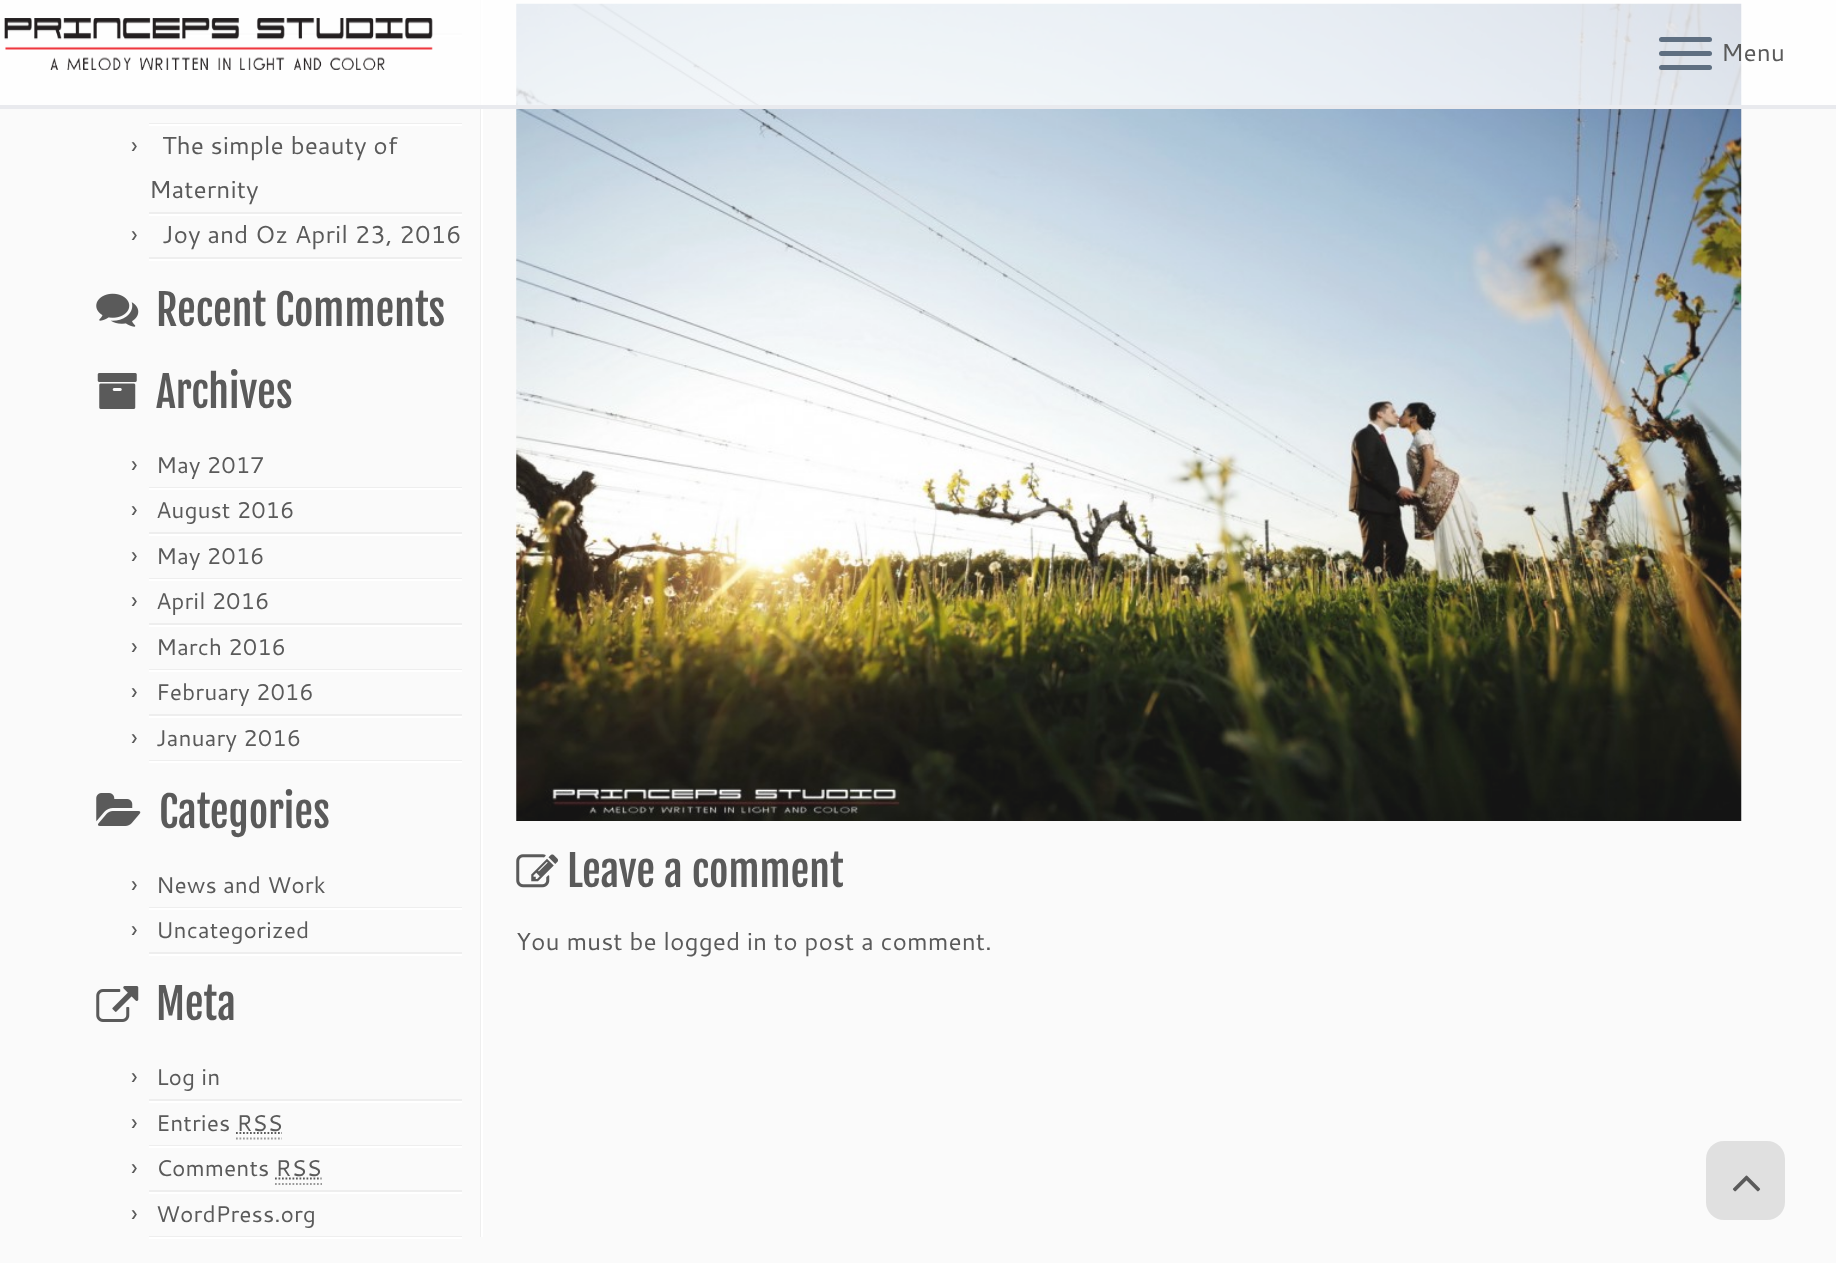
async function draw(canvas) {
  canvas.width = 1836;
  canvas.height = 1263;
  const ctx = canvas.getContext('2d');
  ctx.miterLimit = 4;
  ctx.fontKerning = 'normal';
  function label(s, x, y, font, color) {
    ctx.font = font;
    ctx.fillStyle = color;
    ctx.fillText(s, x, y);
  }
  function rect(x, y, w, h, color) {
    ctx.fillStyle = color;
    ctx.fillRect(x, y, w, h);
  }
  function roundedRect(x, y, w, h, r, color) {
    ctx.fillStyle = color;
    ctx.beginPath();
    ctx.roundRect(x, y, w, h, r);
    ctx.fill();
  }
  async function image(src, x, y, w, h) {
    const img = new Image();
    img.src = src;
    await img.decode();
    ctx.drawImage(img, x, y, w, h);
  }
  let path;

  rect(0, 0, 1836, 1263, '#fafafa');
  rect(480, 0, 1, 1237, '#eee');
  rect(149, 33, 313, 2, '#eee');
  rect(149, 35, 313, 2, '#fff');
  rect(481, 0, 2, 1237, '#fff');
  await image('assets/img6.png', 516, 3, 1226, 818);
  rect(0, 0, 1836, 105, '#ffffffcc');
  rect(0, 105, 1836, 4, '#e9eaee');
  await image('assets/img1.png', 4, 18, 429, 52);
  roundedRect(1659, 37, 53, 5, 2.5, '#5f6f81');
  roundedRect(1659, 51, 53, 5, 2.5, '#5f6f81');
  roundedRect(1659, 65, 53, 5, 2.5, '#5f6f81');
  label('Menu', 1721, 61, '24.5px Cantarell', '#5a5a5a');
  rect(149, 123, 313, 1, '#eee');
  rect(149, 124, 313, 2, '#fff');
  rect(149, 212, 313, 2, '#eee');
  label('›', 131, 154, '24.5px Cantarell', '#5a5a5a');
  label('The simple beauty of', 162, 154, '24.5px Cantarell', '#5a5a5a');
  label('Maternity', 149, 198, '24.5px Cantarell', '#5a5a5a');
  rect(149, 214, 313, 2, '#fff');
  rect(149, 257, 313, 2, '#eee');
  label('›', 131, 243, '24.5px Cantarell', '#5a5a5a');
  label('Joy and Oz April 23, 2016', 162, 243, '24.5px Cantarell', '#5a5a5a');
  rect(149, 259, 313, 2, '#fff');
  await image('assets/img2.png', 96, 293, 43, 34);
  label('Recent Comments', 156, 326, '42px Fjalla One', '#5a5a5a');
  await image('assets/img3.png', 97, 373, 40, 36);
  label('Archives', 156, 408, '42px Fjalla One', '#5a5a5a');
  rect(149, 487, 313, 1, '#eee');
  label('›', 131, 473, '24.5px Cantarell', '#5a5a5a');
  label('May 2017', 156, 473, '22.75px Cantarell', '#5a5a5a');
  rect(149, 488, 313, 2, '#fff');
  rect(149, 532, 313, 2, '#eee');
  label('›', 131, 518, '24.5px Cantarell', '#5a5a5a');
  label('August 2016', 156, 518, '22.75px Cantarell', '#5a5a5a');
  rect(149, 534, 313, 2, '#fff');
  rect(149, 578, 313, 1, '#eee');
  label('›', 131, 564, '24.5px Cantarell', '#5a5a5a');
  label('May 2016', 156, 564, '22.75px Cantarell', '#5a5a5a');
  rect(149, 579, 313, 2, '#fff');
  rect(149, 623, 313, 2, '#eee');
  label('›', 131, 609, '24.5px Cantarell', '#5a5a5a');
  label('April 2016', 156, 609, '22.75px Cantarell', '#5a5a5a');
  rect(149, 625, 313, 2, '#fff');
  rect(149, 669, 313, 1, '#eee');
  label('›', 131, 655, '24.5px Cantarell', '#5a5a5a');
  label('March 2016', 156, 655, '22.75px Cantarell', '#5a5a5a');
  rect(149, 670, 313, 2, '#fff');
  rect(149, 714, 313, 2, '#eee');
  label('›', 131, 700, '24.5px Cantarell', '#5a5a5a');
  label('February 2016', 156, 700, '22.75px Cantarell', '#5a5a5a');
  rect(149, 716, 313, 2, '#fff');
  rect(149, 760, 313, 1, '#eee');
  label('›', 131, 746, '24.5px Cantarell', '#5a5a5a');
  label('January 2016', 156, 746, '22.75px Cantarell', '#5a5a5a');
  rect(149, 761, 313, 2, '#fff');
  await image('assets/img4.png', 96, 793, 45, 33);
  label('Categories', 159, 828, '42px Fjalla One', '#5a5a5a');
  rect(149, 907, 313, 1, '#eee');
  label('›', 131, 893, '24.5px Cantarell', '#5a5a5a');
  label('News and Work', 156, 893, '22.75px Cantarell', '#5a5a5a');
  rect(149, 908, 313, 2, '#fff');
  rect(149, 952, 313, 2, '#eee');
  label('›', 131, 938, '24.5px Cantarell', '#5a5a5a');
  label('Uncategorized', 156, 938, '22.75px Cantarell', '#5a5a5a');
  rect(149, 954, 313, 2, '#fff');
  await image('assets/img5.png', 96, 986, 43, 36);
  label('Meta', 156, 1020, '42px Fjalla One', '#5a5a5a');
  rect(149, 1099, 313, 2, '#eee');
  label('›', 131, 1085, '24.5px Cantarell', '#5a5a5a');
  label('Log in', 156, 1085, '22.75px Cantarell', '#5a5a5a');
  rect(149, 1101, 313, 2, '#fff');
  rect(149, 1145, 313, 1, '#eee');
  label('›', 131, 1131, '24.5px Cantarell', '#5a5a5a');
  label('Entries RSS', 156, 1131, '22.75px Cantarell', '#5a5a5a');
  path = new Path2D('M236 1138.5H282');
  ctx.strokeStyle = '#999';
  ctx.lineWidth = 1.8;
  ctx.setLineDash([1.75, 1.75]);
  ctx.stroke(path);
  path = new Path2D('M236 1133H282');
  ctx.strokeStyle = '#5a5a5a';
  ctx.stroke(path);
  rect(149, 1146, 313, 2, '#fff');
  rect(149, 1190, 313, 2, '#eee');
  label('›', 131, 1176, '24.5px Cantarell', '#5a5a5a');
  label('Comments RSS', 156, 1176, '22.75px Cantarell', '#5a5a5a');
  path = new Path2D('M275 1184H322');
  ctx.strokeStyle = '#999';
  ctx.stroke(path);
  path = new Path2D('M275 1178.5H321.5');
  ctx.strokeStyle = '#5a5a5a';
  ctx.stroke(path);
  rect(149, 1192, 313, 2, '#fff');
  rect(149, 1236, 313, 1, '#eee');
  label('›', 131, 1222, '24.5px Cantarell', '#5a5a5a');
  label('WordPress.org', 156, 1222, '22.75px Cantarell', '#5a5a5a');
  rect(149, 1237, 313, 2, '#fff');
  await image('assets/img7.png', 516, 854, 42, 34);
  label('Leave a comment', 567, 887, '42px Fjalla One', '#5a5a5a');
  label('You must be logged in to post a comment.', 516, 950, '24.5px Cantarell', '#5a5a5a');
  roundedRect(1706, 1141, 79, 79, 18, '#e0e0e0');
  await image('assets/img8.png', 1732, 1175, 29, 17);
}

draw(document.querySelector('canvas'));
